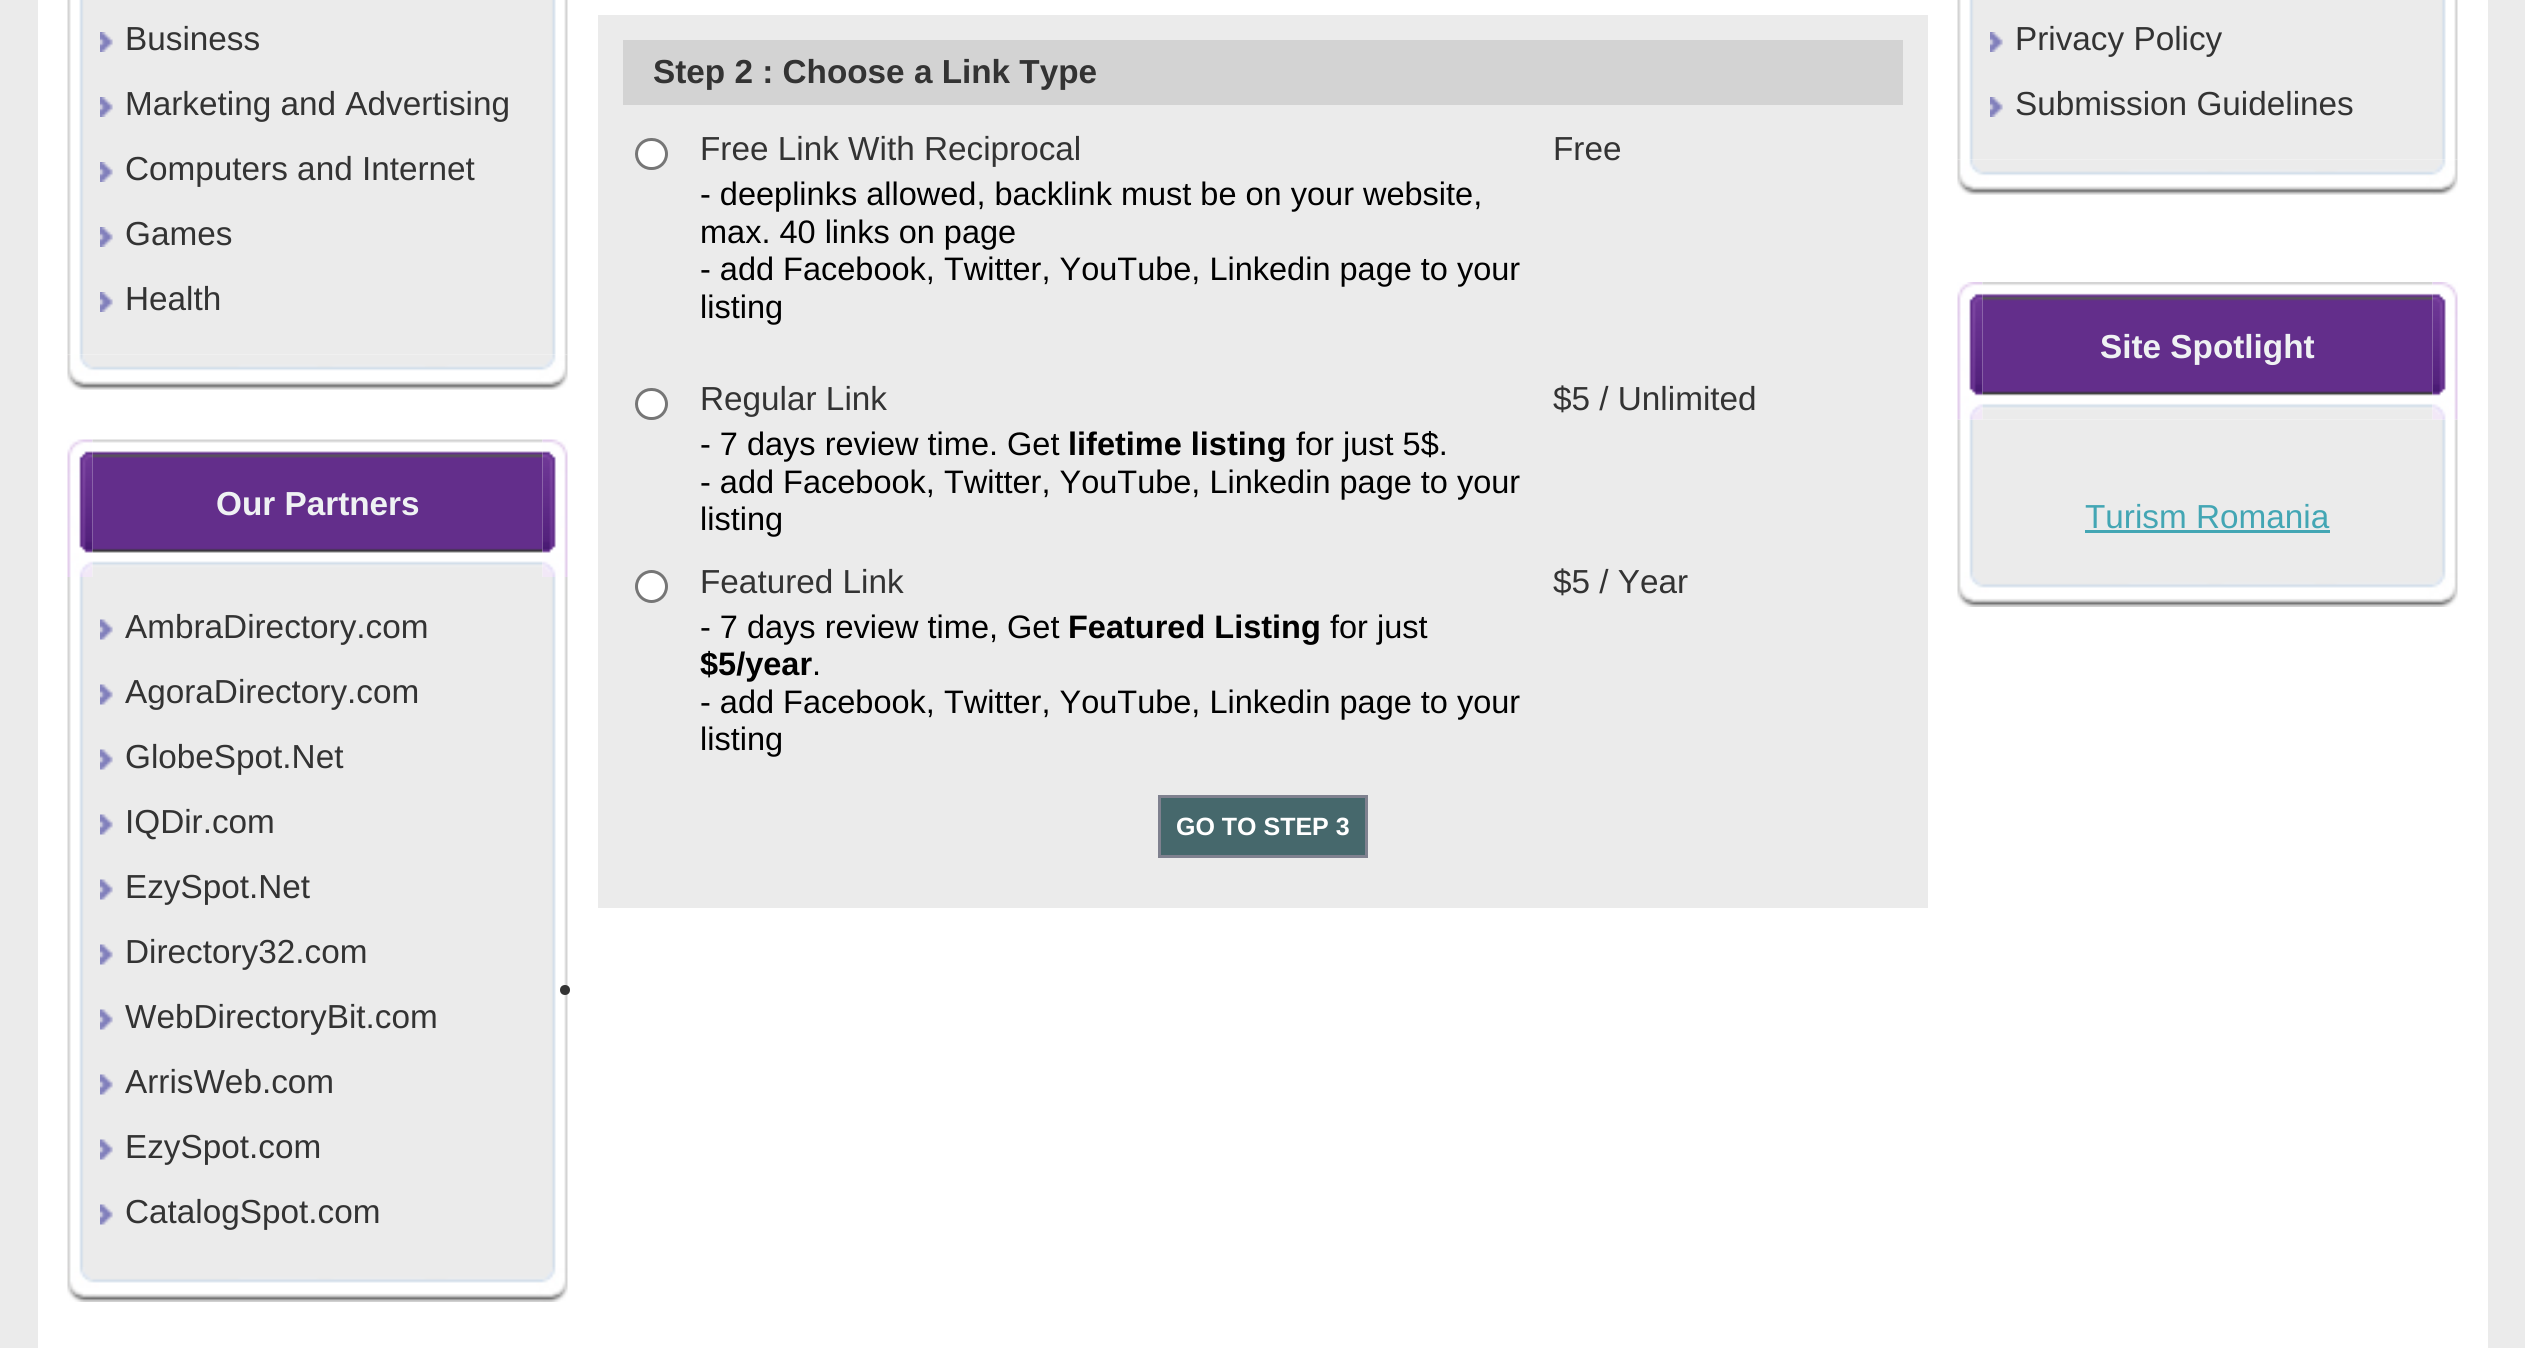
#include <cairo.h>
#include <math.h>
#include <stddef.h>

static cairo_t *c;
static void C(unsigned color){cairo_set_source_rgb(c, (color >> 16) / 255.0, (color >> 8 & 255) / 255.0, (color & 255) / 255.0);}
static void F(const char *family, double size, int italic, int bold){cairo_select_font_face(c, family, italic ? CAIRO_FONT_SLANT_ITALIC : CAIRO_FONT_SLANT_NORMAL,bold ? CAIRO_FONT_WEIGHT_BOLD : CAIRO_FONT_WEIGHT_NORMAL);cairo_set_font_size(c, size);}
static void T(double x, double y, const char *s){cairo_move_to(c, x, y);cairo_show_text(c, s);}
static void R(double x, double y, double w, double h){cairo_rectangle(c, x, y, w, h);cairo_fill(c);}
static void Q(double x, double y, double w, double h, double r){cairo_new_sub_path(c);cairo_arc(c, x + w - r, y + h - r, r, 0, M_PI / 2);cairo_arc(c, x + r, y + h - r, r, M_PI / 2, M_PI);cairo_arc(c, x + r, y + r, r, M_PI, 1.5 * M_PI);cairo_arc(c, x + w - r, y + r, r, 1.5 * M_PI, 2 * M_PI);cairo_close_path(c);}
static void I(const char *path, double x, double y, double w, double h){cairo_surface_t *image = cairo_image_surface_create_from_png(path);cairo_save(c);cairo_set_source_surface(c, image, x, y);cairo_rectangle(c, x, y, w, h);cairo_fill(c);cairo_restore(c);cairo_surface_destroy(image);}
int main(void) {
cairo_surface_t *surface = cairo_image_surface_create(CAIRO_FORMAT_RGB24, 2525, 1348);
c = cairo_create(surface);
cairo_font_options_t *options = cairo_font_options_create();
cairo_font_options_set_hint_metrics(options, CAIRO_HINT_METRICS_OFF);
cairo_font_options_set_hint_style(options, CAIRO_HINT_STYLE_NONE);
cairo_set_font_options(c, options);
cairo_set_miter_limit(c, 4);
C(0xebebeb);
cairo_paint(c);
C(0xffffff);
R(38,0,2450,1348);
I("1.png",67,0,501,355);
I("2.png",100,32,13,20);
F("Liberation Sans",33.3,0,0);
C(0x333333);
T(125,50,"Business");
I("3.png",100,97,13,20);
T(125,115,"Marketing and Advertising");
I("3.png",100,162,13,20);
T(125,180,"Computers and Internet");
I("3.png",100,227,13,20);
T(125,245,"Games");
I("3.png",100,292,13,20);
T(125,310,"Health");
I("4.png",67,354,501,36);
I("5.png",67,439,26,138);
I("6.png",92,439,451,138);
F("Liberation Sans",33.3,0,1);
C(0xeff2f3);
T(216,515,"Our Partners");
I("7.png",542,439,26,138);
I("8.png",67,577,501,690);
I("9.png",100,619,13,21);
F("Liberation Sans",33.3,0,0);
C(0x333333);
T(125,638,"AmbraDirectory.com");
I("9.png",100,684,13,21);
T(125,703,"AgoraDirectory.com");
I("9.png",100,749,13,21);
T(125,768,"GlobeSpot.Net");
I("10.png",100,814,13,21);
T(125,833,"IQDir.com");
I("9.png",100,879,13,21);
T(125,898,"EzySpot.Net");
I("9.png",100,944,13,21);
T(125,963,"Directory32.com");
I("9.png",100,1009,13,21);
T(125,1028,"WebDirectoryBit.com");
I("9.png",100,1074,13,21);
T(125,1093,"ArrisWeb.com");
I("9.png",100,1139,13,21);
T(125,1158,"EzySpot.com");
I("9.png",100,1204,13,21);
T(125,1223,"CatalogSpot.com");
I("11.png",67,1267,501,35);
C(0xebebeb);
R(598,15,1330,893);
C(0xd3d3d3);
R(623,40,1280,65);
F("Liberation Sans",33.3,0,1);
C(0x333333);
T(653,83,"Step 2 : Choose a Link Type");
C(0xffffff);
Q(636.5,139.5,30,29,14.5);
cairo_fill_preserve(c);
C(0x767676);
cairo_set_line_width(c,3);
cairo_stroke(c);
F("Liberation Sans",33.3,0,0);
C(0x333333);
T(700,160,"Free Link With Reciprocal");
F("Liberation Sans",32.5,0,0);
C(0x000000);
T(700,205,"- deeplinks allowed, backlink must be on your website,");
T(700,243,"max. 40 links on page");
T(700,280,"- add Facebook, Twitter, YouTube, Linkedin page to your");
T(700,318,"listing");
F("Liberation Sans",33.3,0,0);
C(0x333333);
T(1553,160,"Free");
C(0xffffff);
Q(636.5,389.5,30,29,14.5);
cairo_fill_preserve(c);
C(0x767676);
cairo_stroke(c);
C(0x333333);
T(700,410,"Regular Link");
F("Liberation Sans",32.5,0,0);
C(0x000000);
T(700,455,"- 7 days review time. Get");
F("Liberation Sans",32.5,0,1);
T(1068,455,"lifetime listing");
F("Liberation Sans",32.5,0,0);
T(1296,455,"for just 5$.");
T(700,493,"- add Facebook, Twitter, YouTube, Linkedin page to your");
T(700,530,"listing");
F("Liberation Sans",33.3,0,0);
C(0x333333);
T(1553,410,"$5 / Unlimited");
C(0xffffff);
cairo_new_path(c);
cairo_arc(c,651.5,586.5,15,0,2 * M_PI);
cairo_fill_preserve(c);
C(0x767676);
cairo_stroke(c);
C(0x333333);
T(700,593,"Featured Link");
F("Liberation Sans",32.5,0,0);
C(0x000000);
T(700,638,"- 7 days review time, Get");
F("Liberation Sans",32.5,0,1);
T(1068,638,"Featured Listing");
F("Liberation Sans",32.5,0,0);
T(1330,638,"for just");
F("Liberation Sans",32.5,0,1);
T(700,675,"$5/year");
F("Liberation Sans",32.5,0,0);
T(812,675,".");
T(700,713,"- add Facebook, Twitter, YouTube, Linkedin page to your");
T(700,750,"listing");
F("Liberation Sans",33.3,0,0);
C(0x333333);
T(1553,593,"$5 / Year");
C(0x46686c);
cairo_rectangle(c,1159.5,796.5,207,60);
cairo_fill_preserve(c);
C(0x7f818f);
cairo_stroke(c);
F("Liberation Sans",25,0,1);
C(0xffffff);
T(1176,835,"GO TO STEP 3");
C(0x333333);
cairo_new_path(c);
cairo_arc(c,565,990,5,0,2 * M_PI);
cairo_fill(c);
I("12.png",1957,0,501,160);
I("13.png",1990,32,13,20);
F("Liberation Sans",33.3,0,0);
T(2015,50,"Privacy Policy");
I("14.png",1990,97,13,20);
T(2015,115,"Submission Guidelines");
I("15.png",1957,159,501,36);
I("19.png",1957,419,501,153);
I("16.png",1957,282,26,138);
I("17.png",1982,282,451,138);
F("Liberation Sans",33.3,0,1);
C(0xeff2f3);
T(2100,358,"Site Spotlight");
I("18.png",2432,282,26,138);
F("Liberation Sans",33.3,0,0);
C(0x43a6b4);
T(2085,528,"Turism Romania");
R(2085,530,245,3);
I("20.png",1957,572,501,35);
cairo_surface_write_to_png(surface, "o.png");
cairo_font_options_destroy(options);
cairo_destroy(c);
cairo_surface_destroy(surface);
return 0;
}
